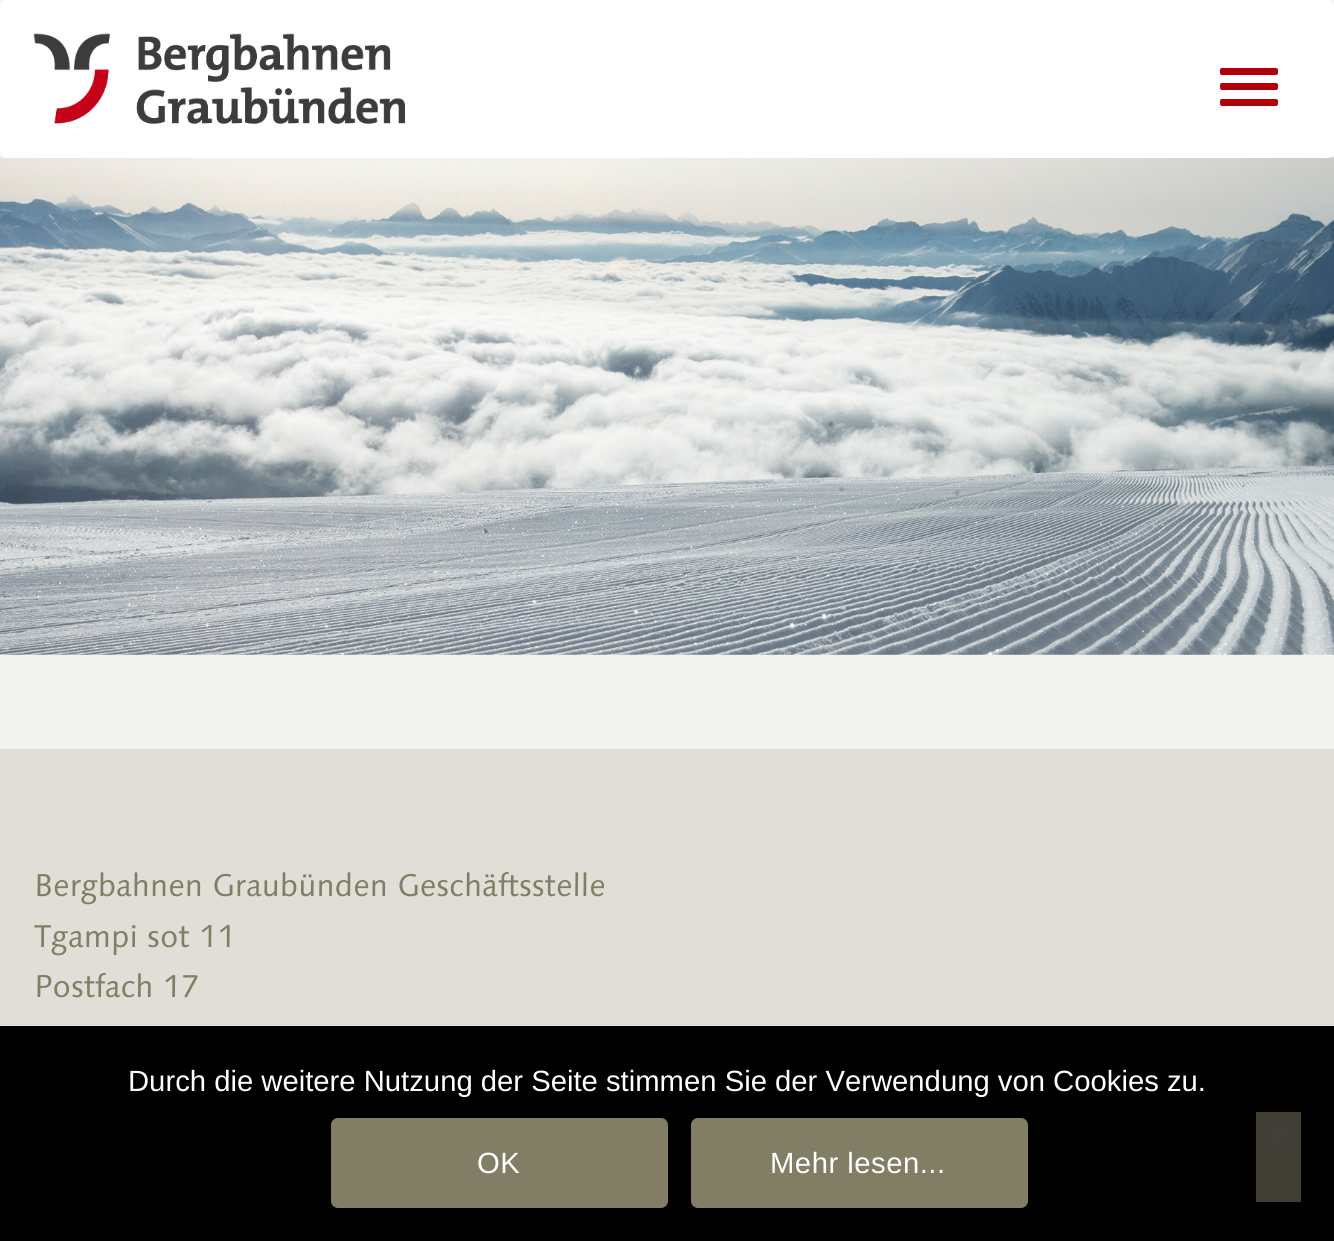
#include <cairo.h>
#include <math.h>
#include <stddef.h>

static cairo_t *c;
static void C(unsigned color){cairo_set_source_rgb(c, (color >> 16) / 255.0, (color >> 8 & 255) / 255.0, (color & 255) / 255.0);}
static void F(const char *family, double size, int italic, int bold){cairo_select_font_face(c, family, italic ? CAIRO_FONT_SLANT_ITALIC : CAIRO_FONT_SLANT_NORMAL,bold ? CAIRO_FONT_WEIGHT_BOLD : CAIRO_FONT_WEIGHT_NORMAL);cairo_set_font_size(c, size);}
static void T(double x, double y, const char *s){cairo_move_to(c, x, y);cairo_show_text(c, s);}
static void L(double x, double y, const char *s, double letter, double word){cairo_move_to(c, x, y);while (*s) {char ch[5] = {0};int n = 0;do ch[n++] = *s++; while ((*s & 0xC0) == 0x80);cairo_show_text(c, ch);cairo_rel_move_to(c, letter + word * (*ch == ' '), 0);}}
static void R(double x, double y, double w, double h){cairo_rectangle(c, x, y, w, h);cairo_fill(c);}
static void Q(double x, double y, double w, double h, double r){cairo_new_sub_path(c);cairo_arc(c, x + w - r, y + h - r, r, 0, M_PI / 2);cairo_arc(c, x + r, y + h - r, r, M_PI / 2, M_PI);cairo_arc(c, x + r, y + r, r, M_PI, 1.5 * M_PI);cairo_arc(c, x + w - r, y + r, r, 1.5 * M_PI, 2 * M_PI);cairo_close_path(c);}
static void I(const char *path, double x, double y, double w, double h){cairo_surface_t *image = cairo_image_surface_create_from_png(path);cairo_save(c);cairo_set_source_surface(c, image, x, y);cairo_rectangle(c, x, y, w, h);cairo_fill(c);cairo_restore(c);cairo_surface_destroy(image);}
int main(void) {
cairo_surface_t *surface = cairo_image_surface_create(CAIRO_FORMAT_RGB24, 1334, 1241);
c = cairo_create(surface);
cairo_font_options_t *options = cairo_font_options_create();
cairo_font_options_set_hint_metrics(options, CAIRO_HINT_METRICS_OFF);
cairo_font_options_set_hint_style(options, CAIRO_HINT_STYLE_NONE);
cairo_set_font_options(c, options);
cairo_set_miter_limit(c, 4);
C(0xf2f2ef);
cairo_paint(c);
I("2.png",0,157,1334,498);
C(0xffffff);
Q(0,0,1334,158,7);
cairo_fill(c);
I("1.png",33,33,372,91);
C(0xb2000b);
Q(1220,68,58,7,2);
cairo_fill(c);
Q(1220,83,58,7,2);
cairo_fill(c);
Q(1220,99,58,7,2);
cairo_fill(c);
C(0xdfdfd8);
R(0,749,1334,277);
F("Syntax",31.5,0,0);
C(0x817e65);
T(34,896,"Bergbahnen Graubünden Geschäftsstelle");
T(34,947,"Tgampi sot 11");
T(34,997,"Postfach 17");
C(0x000000);
R(0,1026,1334,215);
F("Liberation Sans",29.25,0,0);
C(0xffffff);
T(128,1091,"Durch die weitere Nutzung der Seite stimmen Sie der Verwendung von Cookies zu.");
C(0x817e65);
Q(331,1118,337,90,7);
cairo_fill(c);
C(0xffffff);
L(477,1173,"OK",.5,0);
C(0x817e65);
Q(691,1118,337,90,7);
cairo_fill(c);
C(0xffffff);
L(770,1173,"Mehr lesen...",.5,0);
C(0x413f33);
R(1256,1112,45,90);
C(0x404040);
cairo_new_path(c);
cairo_move_to(c,1290.5,1121.5);
cairo_line_to(c,1294,1125);
cairo_line_to(c,1270,1148.5);
cairo_line_to(c,1266.5,1145.5);
cairo_close_path(c);
cairo_fill(c);
cairo_new_path(c);
cairo_move_to(c,1266.5,1125);
cairo_line_to(c,1270,1121.5);
cairo_line_to(c,1294,1145.5);
cairo_line_to(c,1290.5,1148.5);
cairo_close_path(c);
cairo_fill(c);
cairo_surface_write_to_png(surface, "o.png");
cairo_font_options_destroy(options);
cairo_destroy(c);
cairo_surface_destroy(surface);
return 0;
}
